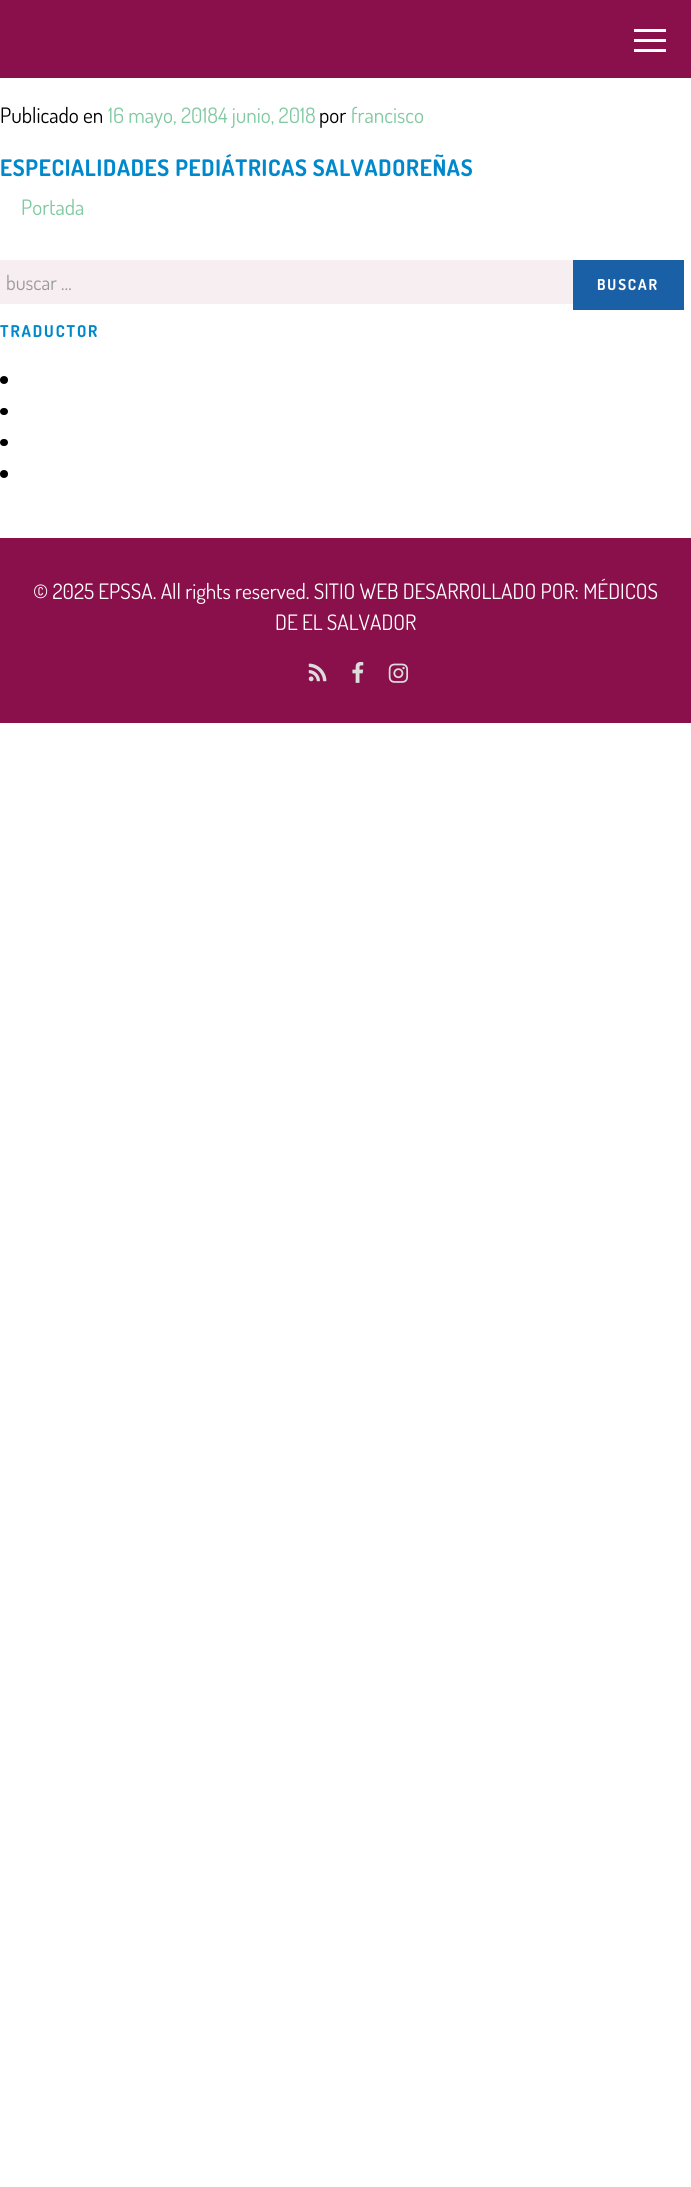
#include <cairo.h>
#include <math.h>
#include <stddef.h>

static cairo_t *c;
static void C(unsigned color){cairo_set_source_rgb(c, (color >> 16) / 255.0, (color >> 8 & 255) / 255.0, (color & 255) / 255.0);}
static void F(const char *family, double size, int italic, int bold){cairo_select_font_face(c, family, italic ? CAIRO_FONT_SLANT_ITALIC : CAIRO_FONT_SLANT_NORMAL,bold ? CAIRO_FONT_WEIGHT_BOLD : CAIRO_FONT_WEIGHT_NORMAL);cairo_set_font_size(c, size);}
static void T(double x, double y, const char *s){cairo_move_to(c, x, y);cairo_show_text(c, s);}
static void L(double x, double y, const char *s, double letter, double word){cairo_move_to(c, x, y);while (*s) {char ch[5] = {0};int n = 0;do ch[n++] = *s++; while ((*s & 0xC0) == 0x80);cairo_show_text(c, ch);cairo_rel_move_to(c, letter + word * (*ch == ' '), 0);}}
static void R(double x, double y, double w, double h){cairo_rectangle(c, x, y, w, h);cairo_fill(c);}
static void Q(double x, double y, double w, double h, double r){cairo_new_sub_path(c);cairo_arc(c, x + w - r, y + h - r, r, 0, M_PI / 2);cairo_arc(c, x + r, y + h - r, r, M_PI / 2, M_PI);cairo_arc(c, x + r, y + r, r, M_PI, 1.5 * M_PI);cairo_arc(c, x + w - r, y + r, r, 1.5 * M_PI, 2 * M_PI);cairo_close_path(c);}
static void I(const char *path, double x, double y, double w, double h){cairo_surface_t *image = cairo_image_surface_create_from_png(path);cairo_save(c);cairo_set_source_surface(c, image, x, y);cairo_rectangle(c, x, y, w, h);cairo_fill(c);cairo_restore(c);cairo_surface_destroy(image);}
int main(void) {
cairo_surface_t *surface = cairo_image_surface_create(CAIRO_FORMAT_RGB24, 691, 2187);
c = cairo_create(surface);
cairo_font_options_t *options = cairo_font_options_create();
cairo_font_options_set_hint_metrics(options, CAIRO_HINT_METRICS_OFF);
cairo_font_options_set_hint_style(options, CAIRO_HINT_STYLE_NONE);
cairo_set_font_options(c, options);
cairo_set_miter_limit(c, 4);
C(0xffffff);
cairo_paint(c);
C(0x89104b);
R(0,0,691,78);
C(0xffffff);
R(634,39,32,3);
R(634,29,32,3);
R(634,49,32,3);
F("Dosis",21.25,0,0);
C(0x000000);
T(0,123,"Publicado en");
C(0x80c9a1);
T(108,123,"16 mayo, 20184 junio, 2018");
C(0x000000);
T(319,123,"por");
C(0x80c9a1);
T(351,123,"francisco");
F("Dosis",22.75,0,1);
C(0x0088cc);
L(0,176,"ESPECIALIDADES PEDIÁTRICAS SALVADOREÑAS",.7,0);
F("Dosis",21.25,0,0);
C(0x80c9a1);
T(21,215,"Portada");
C(0xf7eef2);
R(0,260,573,44);
F("Dosis",20,0,0);
C(0x999999);
T(6,290,"buscar …");
C(0x1a60a6);
R(573,260,111,50);
F("Dosis",15,0,1);
C(0xffffff);
L(597,290,"BUSCAR",1.9,0);
F("Dosis",16.25,0,1);
C(0x0088cc);
L(0,337,"TRADUCTOR",1.9,0);
C(0x000000);
cairo_new_path(c);
cairo_arc(c,4,380,4,0,2 * M_PI);
cairo_fill(c);
Q(0,408,8,7,3.5);
cairo_fill(c);
Q(0,439,8,7,3.5);
cairo_fill(c);
cairo_arc(c,4,474,4,0,2 * M_PI);
cairo_fill(c);
C(0x89104b);
R(0,538,691,185);
F("Dosis",21.25,0,0);
C(0xffffff);
T(33,599,"© 2025 EPSSA. All rights reserved. SITIO WEB DESARROLLADO POR: MÉDICOS");
T(275,630,"DE EL SALVADOR");
I("1.png",308,663,19,19);
I("2.png",352,662,12,21);
I("3.png",388,663,21,20);
cairo_surface_write_to_png(surface, "o.png");
cairo_font_options_destroy(options);
cairo_destroy(c);
cairo_surface_destroy(surface);
return 0;
}
